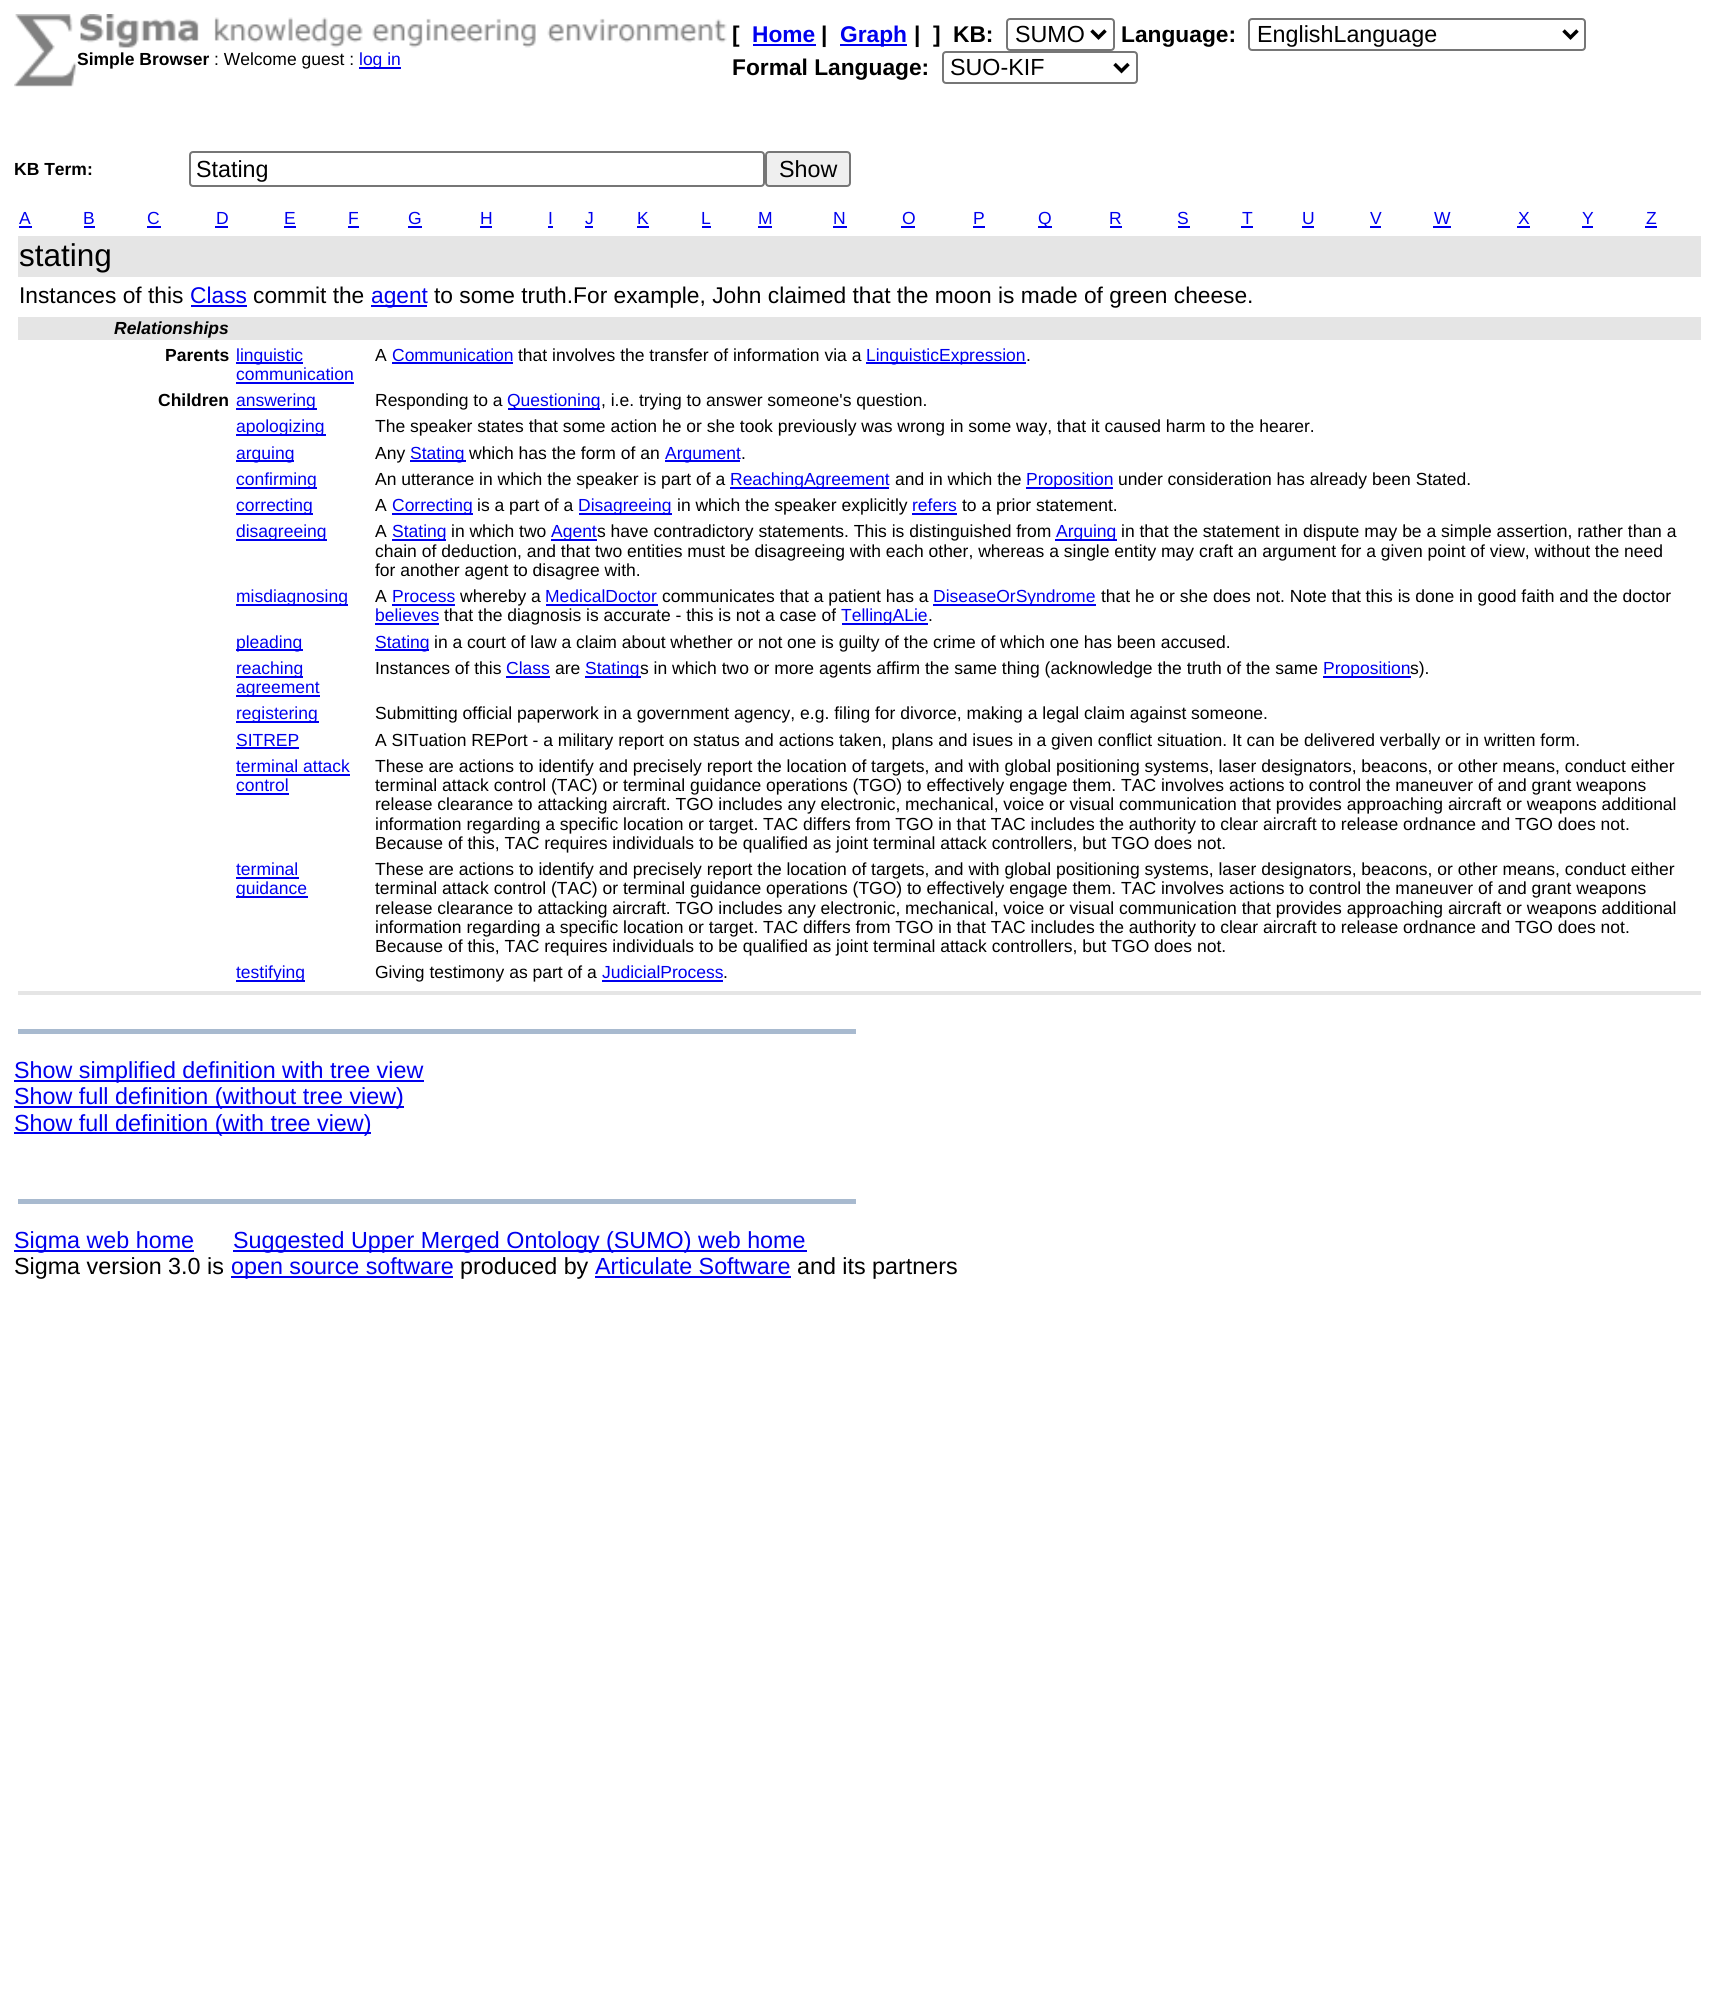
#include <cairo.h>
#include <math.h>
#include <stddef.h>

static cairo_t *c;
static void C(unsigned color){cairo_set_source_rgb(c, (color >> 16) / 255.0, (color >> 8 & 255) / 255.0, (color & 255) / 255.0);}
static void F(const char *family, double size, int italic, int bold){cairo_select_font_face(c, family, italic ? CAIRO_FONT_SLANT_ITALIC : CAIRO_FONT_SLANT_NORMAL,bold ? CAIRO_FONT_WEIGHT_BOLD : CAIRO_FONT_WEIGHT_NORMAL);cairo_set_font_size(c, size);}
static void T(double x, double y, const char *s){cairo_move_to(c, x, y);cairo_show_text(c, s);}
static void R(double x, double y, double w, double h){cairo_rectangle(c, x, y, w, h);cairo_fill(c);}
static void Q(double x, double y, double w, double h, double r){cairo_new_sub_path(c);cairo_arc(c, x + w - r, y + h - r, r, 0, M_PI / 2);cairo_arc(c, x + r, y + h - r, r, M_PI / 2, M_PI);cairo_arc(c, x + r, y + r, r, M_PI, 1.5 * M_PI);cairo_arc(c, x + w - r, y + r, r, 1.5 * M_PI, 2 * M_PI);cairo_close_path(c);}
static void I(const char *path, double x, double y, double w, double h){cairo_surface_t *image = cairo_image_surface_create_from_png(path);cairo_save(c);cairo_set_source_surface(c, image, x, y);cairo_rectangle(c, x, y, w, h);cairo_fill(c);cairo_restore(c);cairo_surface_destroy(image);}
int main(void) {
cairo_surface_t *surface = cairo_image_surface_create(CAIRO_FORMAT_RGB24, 1718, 1996);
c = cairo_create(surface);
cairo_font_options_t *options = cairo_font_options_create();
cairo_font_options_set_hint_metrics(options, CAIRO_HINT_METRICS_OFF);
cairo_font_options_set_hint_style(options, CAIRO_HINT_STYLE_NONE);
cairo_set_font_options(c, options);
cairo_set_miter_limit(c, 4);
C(0xffffff);
cairo_paint(c);
I("1.png",14,14,63,73);
I("2.png",80,14,647,34);
F("Liberation Sans",17.5,0,1);
C(0x000000);
T(77,65,"Simple Browser");
F("Liberation Sans",17.5,0,0);
T(214,65,": Welcome guest :");
C(0x0000ee);
R(359,67,42,2);
T(359,65,"log in");
F("Liberation Sans",22.75,0,1);
C(0x000000);
T(732,42,"[");
C(0x0000ee);
T(752,42,"Home");
R(753,44,63,2);
C(0x000000);
T(821,42,"|");
C(0x0000ee);
R(840,44,67,2);
T(840,42,"Graph");
C(0x000000);
T(914,42,"|");
T(933,42,"]");
T(953,42,"KB:");
Q(1007,19,107,31,3);
C(0x767676);
cairo_stroke(c);
cairo_new_path(c);
cairo_move_to(c,1091.5,30.5);
cairo_line_to(c,1098.5,37.5);
cairo_line_to(c,1105.5,30.5);
C(0x000000);
cairo_set_line_width(c,3.5);
cairo_stroke(c);
F("Liberation Sans",23.3,0,0);
T(1015,42,"SUMO");
F("Liberation Sans",22.75,0,1);
T(1121,42,"Language:");
Q(1249,19,336,31,3);
C(0x767676);
cairo_set_line_width(c,2);
cairo_stroke(c);
cairo_new_path(c);
cairo_move_to(c,1563.5,30.5);
cairo_line_to(c,1570.5,37.5);
cairo_line_to(c,1577.5,30.5);
C(0x000000);
cairo_set_line_width(c,3.5);
cairo_stroke(c);
F("Liberation Sans",23.3,0,0);
T(1257,42,"EnglishLanguage");
F("Liberation Sans",22.75,0,1);
T(732,75,"Formal Language:");
Q(943,52,194,31,3);
C(0x767676);
cairo_set_line_width(c,2);
cairo_stroke(c);
cairo_new_path(c);
cairo_move_to(c,1114.5,64);
cairo_line_to(c,1121.5,71);
cairo_line_to(c,1128.5,64);
C(0x000000);
cairo_set_line_width(c,3.5);
cairo_stroke(c);
F("Liberation Sans",23.3,0,0);
T(950,75,"SUO-KIF");
F("Liberation Sans",17.5,0,1);
T(14,175,"KB Term:");
Q(190,152,574,34,3);
C(0x767676);
cairo_set_line_width(c,2);
cairo_stroke(c);
F("Liberation Sans",23.3,0,0);
C(0x000000);
T(196,177,"Stating");
C(0xefefef);
Q(766,152,84,34,3);
cairo_fill_preserve(c);
C(0x767676);
cairo_stroke(c);
C(0x000000);
T(779,177,"Show");
F("Liberation Sans",17.5,0,0);
C(0x0000ee);
T(19,224,"A");
R(19,226,13,2);
T(83,224,"B");
R(84,226,11,2);
T(147,224,"C");
R(147,226,14,2);
T(216,224,"D");
R(215,226,13,2);
T(284,224,"E");
R(284,226,12,2);
T(348,224,"F");
R(348,226,11,2);
T(408,224,"G");
R(408,226,14,2);
T(480,224,"H");
R(480,226,12,2);
T(548,224,"I");
R(548,226,5,2);
T(585,224,"J");
R(585,226,8,2);
T(637,224,"K");
R(637,226,12,2);
T(701,224,"L");
R(702,226,9,2);
T(758,224,"M");
R(758,226,14,2);
T(833,224,"N");
R(833,226,14,2);
T(902,224,"O");
R(901,226,14,2);
T(973,224,"P");
R(973,226,12,2);
R(1038,226,14,2);
T(1038,224,"Q");
T(1109,224,"R");
R(1110,226,12,2);
T(1177,224,"S");
R(1178,226,12,2);
T(1242,224,"T");
R(1241,226,12,2);
T(1302,224,"U");
R(1302,226,12,2);
T(1370,224,"V");
R(1370,226,11,2);
T(1434,224,"W");
R(1433,226,18,2);
T(1518,224,"X");
R(1517,226,13,2);
T(1582,224,"Y");
R(1582,226,11,2);
T(1646,224,"Z");
R(1645,226,12,2);
C(0xe5e5e5);
R(18,236,1683,41);
F("Liberation Sans",31.5,0,0);
C(0x000000);
T(19,266,"stating");
F("Liberation Sans",22.75,0,0);
T(19,303,"Instances of this");
C(0x0000ee);
T(190,303,"Class");
R(191,305,56,2);
C(0x000000);
T(253,303,"commit the");
C(0x0000ee);
R(371,305,56,2);
T(371,303,"agent");
C(0x000000);
T(434,303,"to some truth.For example, John claimed that the moon is made of green cheese.");
C(0xe5e5e5);
R(18,317,1683,23);
F("Liberation Sans",17.5,1,1);
C(0x000000);
T(114,334,"Relationships");
F("Liberation Sans",17.5,0,1);
T(165,361,"Parents");
C(0x0000ee);
R(236,362,67,2);
F("Liberation Sans",17.5,0,0);
T(236,361,"linguistic");
T(236,380,"communication");
R(236,382,118,2);
C(0x000000);
T(375,361,"A");
C(0x0000ee);
T(392,361,"Communication");
R(392,362,121,2);
C(0x000000);
T(518,361,"that involves the transfer of information via a");
C(0x0000ee);
R(866,362,160,2);
T(866,361,"LinguisticExpression");
C(0x000000);
T(1026,361,".");
F("Liberation Sans",17.5,0,1);
T(158,406,"Children");
C(0x0000ee);
R(236,408,81,2);
F("Liberation Sans",17.5,0,0);
T(236,406,"answering");
C(0x000000);
T(375,406,"Responding to a");
C(0x0000ee);
R(508,408,92,2);
T(507,406,"Questioning");
C(0x000000);
T(601,406,", i.e. trying to answer someone's question.");
C(0x0000ee);
R(236,434,90,2);
T(236,432,"apologizing");
C(0x000000);
T(375,432,"The speaker states that some action he or she took previously was wrong in some way, that it caused harm to the hearer.");
C(0x0000ee);
R(236,460,58,2);
T(236,459,"arguing");
C(0x000000);
T(375,459,"Any");
C(0x0000ee);
R(410,460,56,2);
T(410,459,"Stating");
C(0x000000);
T(469,459,"which has the form of an");
C(0x0000ee);
R(665,460,75,2);
T(665,459,"Argument");
C(0x000000);
T(741,459,".");
C(0x0000ee);
R(236,487,81,2);
T(236,485,"confirming");
C(0x000000);
T(375,485,"An utterance in which the speaker is part of a");
C(0x0000ee);
R(730,487,159,2);
T(730,485,"ReachingAgreement");
C(0x000000);
T(895,485,"and in which the");
C(0x0000ee);
R(1026,487,87,2);
T(1026,485,"Proposition");
C(0x000000);
T(1118,485,"under consideration has already been Stated.");
C(0x0000ee);
R(236,513,77,2);
T(236,511,"correcting");
C(0x000000);
T(375,511,"A");
C(0x0000ee);
R(392,513,81,2);
T(392,511,"Correcting");
C(0x000000);
T(477,511,"is a part of a");
C(0x0000ee);
R(579,513,93,2);
T(578,511,"Disagreeing");
C(0x000000);
T(677,511,"in which the speaker explicitly");
C(0x0000ee);
T(912,511,"refers");
R(912,513,45,2);
C(0x000000);
T(962,511,"to a prior statement.");
C(0x0000ee);
R(236,539,91,2);
T(236,537,"disagreeing");
C(0x000000);
T(375,537,"A");
C(0x0000ee);
R(392,539,54,2);
T(392,537,"Stating");
C(0x000000);
T(451,537,"in which two");
C(0x0000ee);
R(551,539,46,2);
T(551,537,"Agent");
C(0x000000);
T(597,537,"s have contradictory statements. This is distinguished from");
C(0x0000ee);
R(1055,539,62,2);
T(1056,537,"Arguing");
C(0x000000);
T(1121,537,"in that the statement in dispute may be a simple assertion, rather than a");
T(375,557,"chain of deduction, and that two entities must be disagreeing with each other, whereas a single entity may craft an argument for a given point of view, without the need");
T(375,576,"for another agent to disagree with.");
C(0x0000ee);
R(236,604,112,2);
T(236,602,"misdiagnosing");
C(0x000000);
T(375,602,"A");
C(0x0000ee);
T(392,602,"Process");
R(392,604,63,2);
C(0x000000);
T(460,602,"whereby a");
C(0x0000ee);
T(545,602,"MedicalDoctor");
R(546,604,112,2);
C(0x000000);
T(662,602,"communicates that a patient has a");
C(0x0000ee);
R(933,604,163,2);
T(933,602,"DiseaseOrSyndrome");
C(0x000000);
T(1101,602,"that he or she does not. Note that this is done in good faith and the doctor");
C(0x0000ee);
T(375,621,"believes");
R(375,623,64,2);
C(0x000000);
T(444,621,"that the diagnosis is accurate - this is not a case of");
C(0x0000ee);
R(842,623,86,2);
T(841,621,"TellingALie");
C(0x000000);
T(928,621,".");
C(0x0000ee);
R(236,649,67,2);
T(236,648,"pleading");
R(375,649,54,2);
T(375,648,"Stating");
C(0x000000);
T(434,648,"in a court of law a claim about whether or not one is guilty of the crime of which one has been accused.");
C(0x0000ee);
R(236,676,67,2);
T(236,674,"reaching");
R(236,695,84,2);
T(236,693,"agreement");
C(0x000000);
T(375,674,"Instances of this");
C(0x0000ee);
T(506,674,"Class");
R(506,676,44,2);
C(0x000000);
T(555,674,"are");
C(0x0000ee);
R(585,676,56,2);
T(585,674,"Stating");
C(0x000000);
T(640,674,"s in which two or more agents affirm the same thing (acknowledge the truth of the same");
C(0x0000ee);
R(1323,676,88,2);
T(1323,674,"Proposition");
C(0x000000);
T(1410,674,"s).");
C(0x0000ee);
R(236,721,83,2);
T(236,719,"registering");
C(0x000000);
T(375,719,"Submitting official paperwork in a government agency, e.g. filing for divorce, making a legal claim against someone.");
C(0x0000ee);
T(236,746,"SITREP");
R(236,747,63,2);
C(0x000000);
T(375,746,"A SITuation REPort - a military report on status and actions taken, plans and isues in a given conflict situation. It can be delivered verbally or in written form.");
C(0x0000ee);
T(236,772,"terminal attack");
R(236,774,114,2);
T(236,791,"control");
R(236,793,53,2);
C(0x000000);
T(375,772,"These are actions to identify and precisely report the location of targets, and with global positioning systems, laser designators, beacons, or other means, conduct either");
T(375,791,"terminal attack control (TAC) or terminal guidance operations (TGO) to effectively engage them. TAC involves actions to control the maneuver of and grant weapons");
T(375,810,"release clearance to attacking aircraft. TGO includes any electronic, mechanical, voice or visual communication that provides approaching aircraft or weapons additional");
T(375,830,"information regarding a specific location or target. TAC differs from TGO in that TAC includes the authority to clear aircraft to release ordnance and TGO does not.");
T(375,849,"Because of this, TAC requires individuals to be qualified as joint terminal attack controllers, but TGO does not.");
C(0x0000ee);
T(236,875,"terminal");
R(236,877,63,2);
R(236,896,72,2);
T(236,894,"guidance");
C(0x000000);
T(375,875,"These are actions to identify and precisely report the location of targets, and with global positioning systems, laser designators, beacons, or other means, conduct either");
T(375,894,"terminal attack control (TAC) or terminal guidance operations (TGO) to effectively engage them. TAC involves actions to control the maneuver of and grant weapons");
T(375,914,"release clearance to attacking aircraft. TGO includes any electronic, mechanical, voice or visual communication that provides approaching aircraft or weapons additional");
T(375,933,"information regarding a specific location or target. TAC differs from TGO in that TAC includes the authority to clear aircraft to release ordnance and TGO does not.");
T(375,952,"Because of this, TAC requires individuals to be qualified as joint terminal attack controllers, but TGO does not.");
C(0x0000ee);
R(236,980,69,2);
T(236,978,"testifying");
C(0x000000);
T(375,978,"Giving testimony as part of a");
C(0x0000ee);
T(602,978,"JudicialProcess");
R(602,980,121,2);
C(0x000000);
T(723,978,".");
C(0xe5e5e5);
R(18,991,1683,4);
C(0xa8bacf);
R(18,1029,838,5);
C(0x0000ee);
R(14,1080,410,2);
F("Liberation Sans",23.3,0,0);
T(14,1078,"Show simplified definition with tree view");
R(14,1106,390,2);
T(14,1104,"Show full definition (without tree view)");
R(14,1132,357,2);
T(14,1131,"Show full definition (with tree view)");
C(0xa8bacf);
R(18,1199,838,5);
C(0x0000ee);
R(14,1250,180,2);
T(14,1248,"Sigma web home");
R(233,1250,574,2);
T(233,1248,"Suggested Upper Merged Ontology (SUMO) web home");
C(0x000000);
T(14,1274,"Sigma version 3.0 is");
C(0x0000ee);
R(231,1276,222,2);
T(231,1274,"open source software");
C(0x000000);
T(460,1274,"produced by");
C(0x0000ee);
T(595,1274,"Articulate Software");
R(595,1276,196,2);
C(0x000000);
T(797,1274,"and its partners");
cairo_surface_write_to_png(surface, "o.png");
cairo_font_options_destroy(options);
cairo_destroy(c);
cairo_surface_destroy(surface);
return 0;
}
